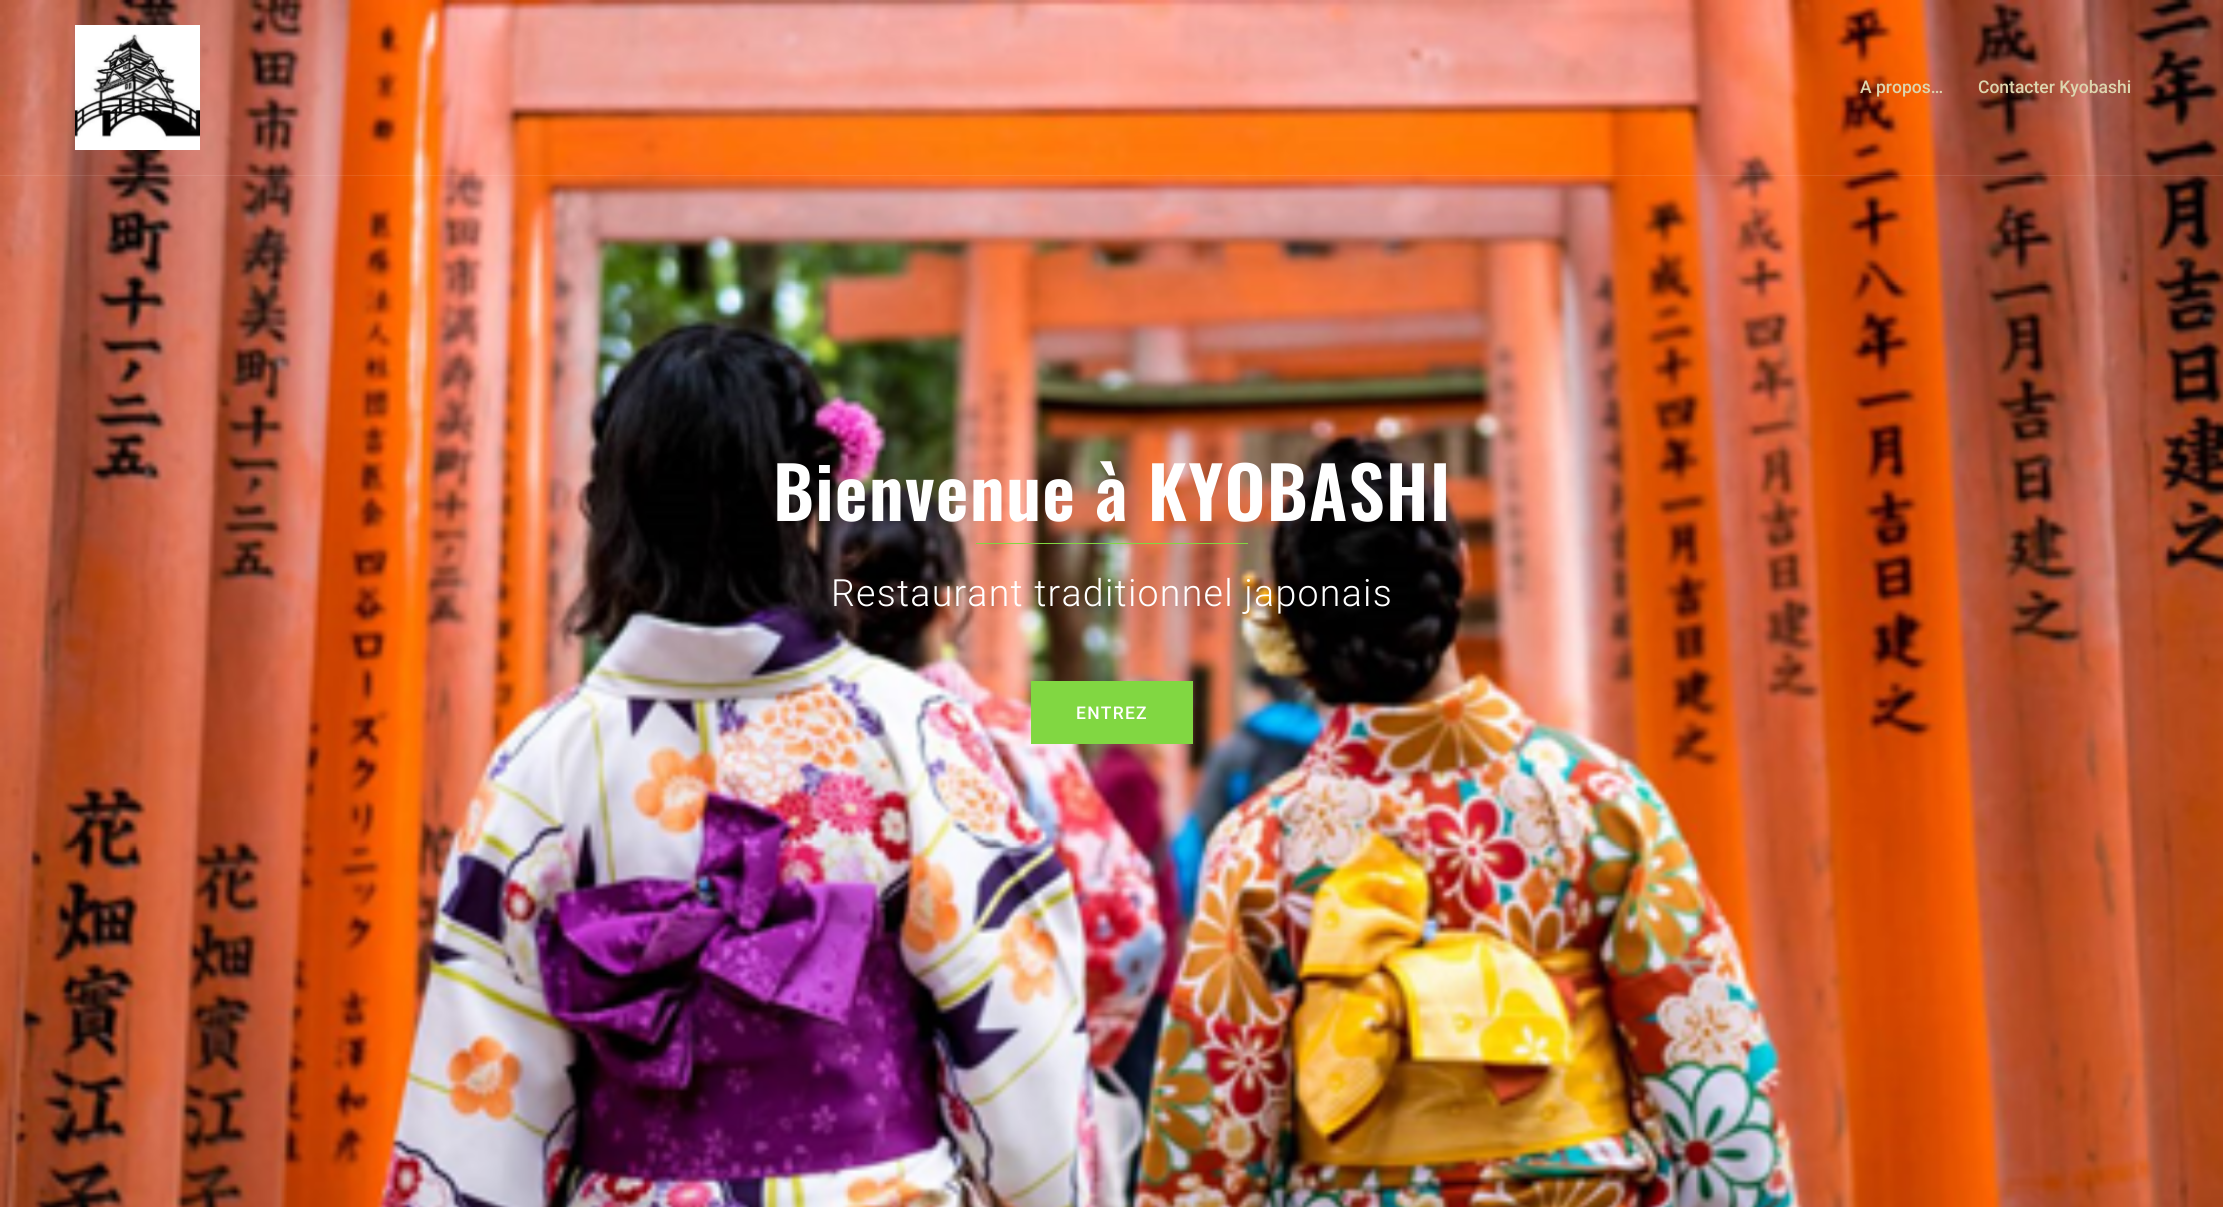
#include <cairo.h>
#include <math.h>
#include <stddef.h>

static cairo_t *c;
static void C(unsigned color){cairo_set_source_rgb(c, (color >> 16) / 255.0, (color >> 8 & 255) / 255.0, (color & 255) / 255.0);}
static void F(const char *family, double size, int italic, int bold){cairo_select_font_face(c, family, italic ? CAIRO_FONT_SLANT_ITALIC : CAIRO_FONT_SLANT_NORMAL,bold ? CAIRO_FONT_WEIGHT_BOLD : CAIRO_FONT_WEIGHT_NORMAL);cairo_set_font_size(c, size);}
static void T(double x, double y, const char *s){cairo_move_to(c, x, y);cairo_show_text(c, s);}
static void L(double x, double y, const char *s, double letter, double word){cairo_move_to(c, x, y);while (*s) {char ch[5] = {0};int n = 0;do ch[n++] = *s++; while ((*s & 0xC0) == 0x80);cairo_show_text(c, ch);cairo_rel_move_to(c, letter + word * (*ch == ' '), 0);}}
static void R(double x, double y, double w, double h){cairo_rectangle(c, x, y, w, h);cairo_fill(c);}
static void I(const char *path, double x, double y, double w, double h){cairo_surface_t *image = cairo_image_surface_create_from_png(path);cairo_save(c);cairo_set_source_surface(c, image, x, y);cairo_rectangle(c, x, y, w, h);cairo_fill(c);cairo_restore(c);cairo_surface_destroy(image);}
int main(void) {
cairo_surface_t *surface = cairo_image_surface_create(CAIRO_FORMAT_RGB24, 2223, 1207);
c = cairo_create(surface);
cairo_font_options_t *options = cairo_font_options_create();
cairo_font_options_set_hint_metrics(options, CAIRO_HINT_METRICS_OFF);
cairo_font_options_set_hint_style(options, CAIRO_HINT_STYLE_NONE);
cairo_set_font_options(c, options);
cairo_set_miter_limit(c, 4);
C(0xffffff);
cairo_paint(c);
I("2.png",0,0,2223,1207);
cairo_set_source_rgba(c,1,1,1,0.1);
R(0,175,2223,1);
I("1.png",75,25,125,125);
F("Roboto Medium",17.5,0,0);
C(0xddd6af);
T(1860,93,"A propos…");
T(1978,93,"Contacter Kyobashi");
F("Oswald SemiBold",71.25,0,0);
C(0xffffff);
L(773,521,"Bienvenue à KYOBASHI",1.25,0);
C(0x81d742);
R(976,543,272,1);
F("Roboto Light",37.5,0,0);
C(0xffffff);
L(831,606,"Restaurant traditionnel japonais",1.25,0);
C(0x81d742);
R(1031,681,162,63);
F("Roboto Medium",17.5,0,0);
C(0xffffff);
L(1076,719,"ENTREZ",1.25,0);
cairo_surface_write_to_png(surface, "o.png");
cairo_font_options_destroy(options);
cairo_destroy(c);
cairo_surface_destroy(surface);
return 0;
}
